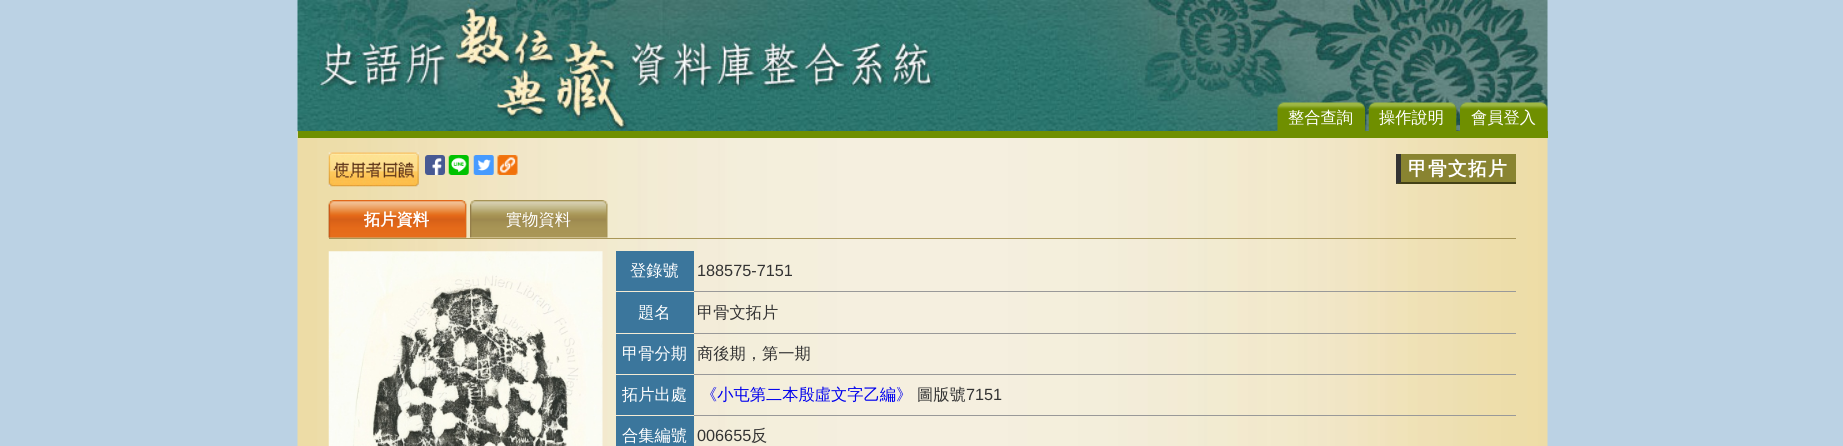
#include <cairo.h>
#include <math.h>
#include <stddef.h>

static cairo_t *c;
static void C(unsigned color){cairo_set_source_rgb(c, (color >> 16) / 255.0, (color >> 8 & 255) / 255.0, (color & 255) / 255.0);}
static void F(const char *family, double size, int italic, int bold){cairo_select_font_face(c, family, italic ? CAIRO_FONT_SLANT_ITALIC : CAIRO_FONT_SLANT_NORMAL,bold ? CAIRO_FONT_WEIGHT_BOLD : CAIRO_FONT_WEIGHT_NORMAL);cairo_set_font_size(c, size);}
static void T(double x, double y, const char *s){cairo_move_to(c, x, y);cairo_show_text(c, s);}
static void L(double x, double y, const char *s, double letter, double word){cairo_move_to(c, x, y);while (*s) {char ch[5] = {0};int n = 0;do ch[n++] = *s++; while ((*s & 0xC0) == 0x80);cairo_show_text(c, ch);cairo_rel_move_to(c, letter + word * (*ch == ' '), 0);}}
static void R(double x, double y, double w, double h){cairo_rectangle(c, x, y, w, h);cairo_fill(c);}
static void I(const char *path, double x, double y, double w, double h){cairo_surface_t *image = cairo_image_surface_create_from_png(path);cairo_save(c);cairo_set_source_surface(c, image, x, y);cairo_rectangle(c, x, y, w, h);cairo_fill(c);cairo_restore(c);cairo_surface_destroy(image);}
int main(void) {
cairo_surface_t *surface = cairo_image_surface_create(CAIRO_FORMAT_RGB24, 1843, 446);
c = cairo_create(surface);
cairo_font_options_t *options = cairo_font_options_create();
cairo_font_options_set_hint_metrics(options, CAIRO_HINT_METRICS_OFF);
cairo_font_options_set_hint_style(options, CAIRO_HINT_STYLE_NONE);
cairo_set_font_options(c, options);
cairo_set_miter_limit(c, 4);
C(0xbbd2e4);
cairo_paint(c);
I("1.png",297,0,1251,132);
I("2.png",1277,102,88,29);
F("WenQuanYi Zen Hei Medium",16.25,0,0);
C(0xffffff);
T(1288,123,"整合查詢");
I("3.png",1368,102,89,29);
T(1379,123,"操作說明");
I("4.png",1460,102,88,29);
T(1471,123,"會員登入");
I("5.png",297,131,1251,315);
C(0x6f8f00);
R(298,131,1250,7);
I("6.png",328,152,91,35);
I("7.png",425,155,20,20);
I("8.png",448,155,21,20);
I("9.png",473,155,21,20);
I("10.png",497,155,21,20);
C(0x898431);
R(1396,154,120,30);
F("WenQuanYi Zen Hei",18.75,0,1);
C(0xffffff);
L(1408,175,"甲骨文拓片",1.25,0);
C(0x434116);
cairo_new_path(c);
cairo_move_to(c,1516,184);
cairo_line_to(c,1396,184);
cairo_line_to(c,1401,182);
cairo_line_to(c,1516,182);
cairo_close_path(c);
cairo_fill(c);
C(0x333333);
cairo_new_path(c);
cairo_move_to(c,1396,184);
cairo_line_to(c,1396,154);
cairo_line_to(c,1401,154);
cairo_line_to(c,1401,182.5);
cairo_close_path(c);
cairo_fill(c);
C(0xa99657);
R(329,238,1187,1);
I("11.png",328,200,139,38);
I("12.png",328,200,139,38);
F("WenQuanYi Zen Hei",16.25,0,1);
C(0xffffff);
T(364,225,"拓片資料");
I("13.png",470,200,138,38);
F("WenQuanYi Zen Hei Medium",16.25,0,0);
T(506,225,"實物資料");
I("14.png",328,251,275,195);
C(0x3b769c);
R(616,251,78,82);
C(0x999999);
R(693,291,823,1);
C(0xf3ebd4);
R(615,291,79,1);
C(0xffffff);
T(630,276,"登錄號");
F("Liberation Sans",16.25,0,0);
C(0x333333);
T(697,276,"188575-7151");
C(0x999999);
R(693,333,823,1);
C(0xf3ebd4);
R(615,333,79,1);
F("WenQuanYi Zen Hei Medium",16.25,0,0);
C(0xffffff);
T(638,318,"題名");
C(0x333333);
T(697,318,"甲骨文拓片");
C(0x3b769c);
R(616,334,78,40);
C(0x999999);
R(693,374,823,1);
C(0xf3ebd4);
R(615,374,79,1);
C(0xffffff);
T(622,359,"甲骨分期");
C(0x333333);
T(697,359,"商後期，第一期");
C(0x3b769c);
R(616,375,78,40);
C(0x999999);
R(693,415,823,1);
C(0xf3ebd4);
R(615,415,79,1);
C(0xffffff);
T(622,400,"拓片出處");
C(0x0000ee);
T(701,400,"《小屯第二本殷虛文字乙編》");
C(0x333333);
T(917,400,"圖版號");
F("Liberation Sans",16.25,0,0);
T(966,400,"7151");
C(0x3b769c);
R(616,416,78,30);
F("WenQuanYi Zen Hei Medium",16.25,0,0);
C(0xffffff);
T(622,441,"合集編號");
F("Liberation Sans",16.25,0,0);
C(0x333333);
T(697,441,"006655");
F("WenQuanYi Zen Hei Medium",16.25,0,0);
T(751,441,"反");
cairo_surface_write_to_png(surface, "o.png");
cairo_font_options_destroy(options);
cairo_destroy(c);
cairo_surface_destroy(surface);
return 0;
}
